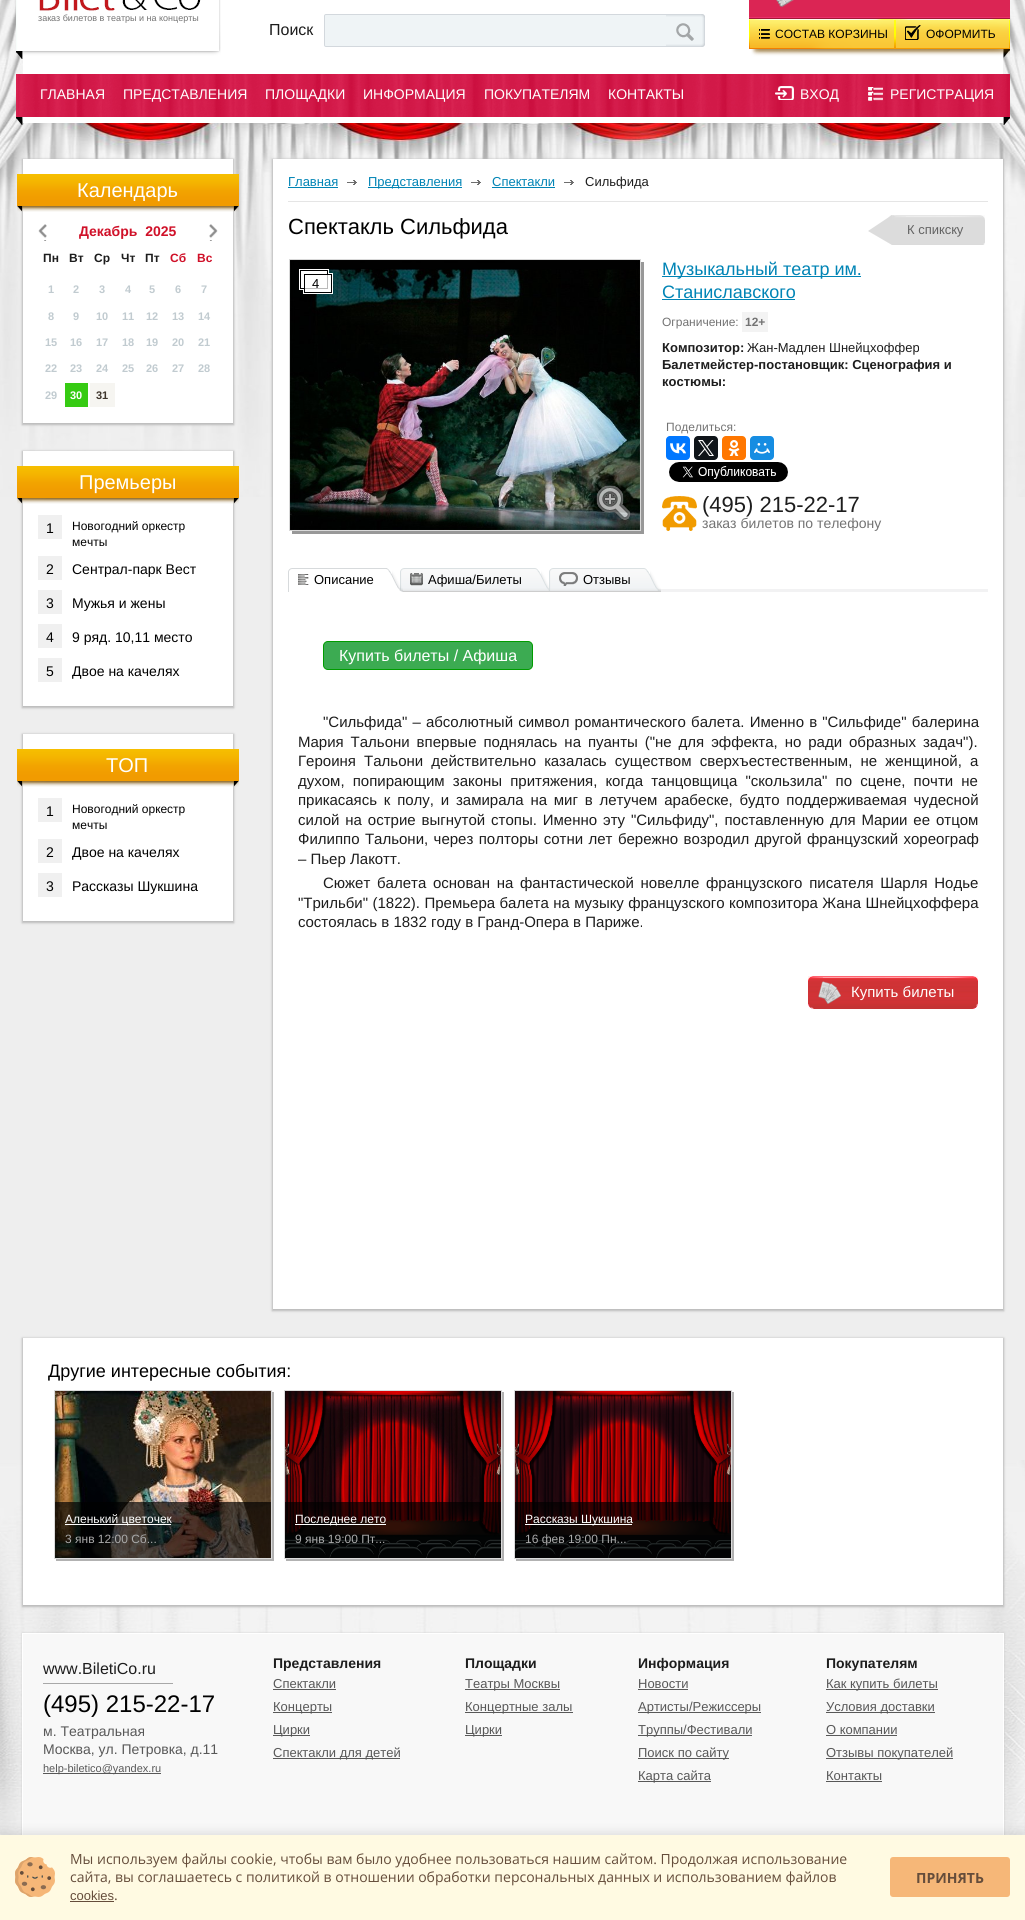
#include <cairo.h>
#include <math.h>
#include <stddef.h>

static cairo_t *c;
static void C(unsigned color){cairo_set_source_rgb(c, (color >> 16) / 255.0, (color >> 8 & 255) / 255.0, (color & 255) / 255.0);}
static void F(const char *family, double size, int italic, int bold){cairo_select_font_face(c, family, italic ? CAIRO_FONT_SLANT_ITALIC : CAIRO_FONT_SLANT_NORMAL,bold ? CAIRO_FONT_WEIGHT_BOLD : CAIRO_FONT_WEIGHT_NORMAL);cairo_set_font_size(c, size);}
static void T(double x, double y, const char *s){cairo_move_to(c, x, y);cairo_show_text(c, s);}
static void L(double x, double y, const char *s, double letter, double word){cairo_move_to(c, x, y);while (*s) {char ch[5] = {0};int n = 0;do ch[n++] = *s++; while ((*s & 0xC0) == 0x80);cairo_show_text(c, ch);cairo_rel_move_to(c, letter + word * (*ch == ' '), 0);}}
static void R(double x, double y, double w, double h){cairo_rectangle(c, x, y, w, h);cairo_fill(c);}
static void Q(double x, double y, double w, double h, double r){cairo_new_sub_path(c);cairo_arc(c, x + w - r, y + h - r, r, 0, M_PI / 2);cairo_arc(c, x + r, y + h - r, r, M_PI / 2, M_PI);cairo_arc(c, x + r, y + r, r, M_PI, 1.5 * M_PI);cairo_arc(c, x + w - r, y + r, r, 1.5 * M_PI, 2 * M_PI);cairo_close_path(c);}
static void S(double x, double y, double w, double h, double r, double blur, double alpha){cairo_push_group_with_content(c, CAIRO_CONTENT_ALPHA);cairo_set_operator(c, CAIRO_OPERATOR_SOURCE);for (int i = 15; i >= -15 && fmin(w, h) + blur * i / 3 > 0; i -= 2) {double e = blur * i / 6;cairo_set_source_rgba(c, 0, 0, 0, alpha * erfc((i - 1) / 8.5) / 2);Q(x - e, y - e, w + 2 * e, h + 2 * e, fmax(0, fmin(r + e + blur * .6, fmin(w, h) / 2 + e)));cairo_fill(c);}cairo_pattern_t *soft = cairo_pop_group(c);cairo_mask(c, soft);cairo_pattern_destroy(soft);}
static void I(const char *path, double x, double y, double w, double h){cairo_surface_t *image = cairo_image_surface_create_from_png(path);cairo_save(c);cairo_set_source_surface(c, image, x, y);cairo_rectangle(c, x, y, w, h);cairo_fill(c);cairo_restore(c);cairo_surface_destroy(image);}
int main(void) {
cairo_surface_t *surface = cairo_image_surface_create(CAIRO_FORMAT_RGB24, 1025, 1920);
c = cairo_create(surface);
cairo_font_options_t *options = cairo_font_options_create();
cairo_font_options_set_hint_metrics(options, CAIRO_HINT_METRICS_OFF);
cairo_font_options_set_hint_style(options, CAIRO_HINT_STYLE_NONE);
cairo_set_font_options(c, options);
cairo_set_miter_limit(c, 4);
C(0xeeeeee);
cairo_paint(c);
I("1.png",0,0,1025,497);
I("2.png",0,1460,1025,375);
C(0xffffff);
R(23,0,980,123);
I("3.png",16,0,205,59);
F("Liberation Sans",9,0,0);
C(0x737373);
T(38,21,"заказ билетов в театры и на концерты");
F("Liberation Sans",16,0,0);
C(0x1d1d1d);
T(269,35,"Поиск");
C(0xeff4f6);
Q(324.5,14.5,351,32,1.5);
cairo_fill_preserve(c);
C(0xd3d8dd);
cairo_set_line_width(c,1);
cairo_stroke(c);
I("4.png",666,14,39,33);
C(0xdb2554);
R(749,0,261,17);
C(0xeb306d);
R(749,17,261,1);
I("5.png",776,0,18,7);
C(0xa11836);
R(749,18,261,1);
I("6.png",749,19,146,30);
I("7.png",759,29,11,10);
F("Liberation Sans",12,0,0);
C(0x000000);
T(775,38,"СОСТАВ КОРЗИНЫ");
I("8.png",895,19,115,30);
I("9.png",905,25,16,15);
T(926,38,"ОФОРМИТЬ");
I("10.png",751,49,259,9);
I("11.png",16,74,994,51);
F("Liberation Sans",14,0,0);
C(0xffffff);
T(40,99,"ГЛАВНАЯ");
T(123,99,"ПРЕДСТАВЛЕНИЯ");
T(265,99,"ПЛОЩАДКИ");
T(363,99,"ИНФОРМАЦИЯ");
T(484,99,"ПОКУПАТЕЛЯМ");
T(608,99,"КОНТАКТЫ");
I("12.png",775,86,19,14);
T(800,99,"ВХОД");
I("13.png",868,87,15,14);
T(890,99,"РЕГИСТРАЦИЯ");
C(0xbbbbbb);
S(22,159,212,266,0,1,1);
C(0xffffff);
R(23,159,210,264);
I("14.png",17,174,222,38);
F("Liberation Sans",20,0,0);
T(77,197,"Календарь");
I("15.png",38,224,9,17);
F("Liberation Sans",14,0,1);
C(0xd01129);
T(79,236,"Декабрь  2025");
I("16.png",209,224,9,17);
F("Liberation Sans",12,0,1);
C(0x1d1d1d);
T(43,262,"Пн");
T(69,262,"Вт");
T(94,262,"Ср");
T(121,262,"Чт");
T(145,262,"Пт");
C(0xd01129);
T(170,262,"Сб");
T(197,262,"Вс");
F("Liberation Sans",11,0,1);
C(0xc1cbd0);
T(48,293,"1");
T(73,293,"2");
T(99,293,"3");
T(125,293,"4");
T(149,293,"5");
T(175,293,"6");
T(201,293,"7");
T(48,320,"8");
T(73,320,"9");
T(96,320,"10");
T(122,320,"11");
T(146,320,"12");
T(172,320,"13");
T(198,320,"14");
T(45,346,"15");
T(70,346,"16");
T(96,346,"17");
T(122,346,"18");
T(146,346,"19");
T(172,346,"20");
T(198,346,"21");
T(45,372,"22");
T(70,372,"23");
T(96,372,"24");
T(122,372,"25");
T(146,372,"26");
T(172,372,"27");
T(198,372,"28");
T(45,399,"29");
C(0x36cb13);
R(65,383,23,24);
C(0xffffff);
T(70,399,"30");
C(0xf6f5f1);
R(90,383,25,24);
C(0x3d342b);
T(96,399,"31");
C(0xbbbbbb);
S(22,451,212,257,0,1,1);
C(0xffffff);
R(23,451,210,255);
I("17.png",17,466,222,38);
F("Liberation Sans",20,0,0);
T(79,489,"Премьеры");
C(0xf0f0f0);
R(38,515,24,24);
F("Liberation Sans",14,0,0);
C(0x000000);
T(46,533,"1");
F("Liberation Sans",12,0,0);
T(72,530,"Новогодний оркестр");
T(72,546,"мечты");
C(0xf0f0f0);
R(38,556,24,24);
F("Liberation Sans",14,0,0);
C(0x000000);
T(46,574,"2");
T(72,574,"Сентрал-парк Вест");
C(0xf0f0f0);
R(38,590,24,24);
C(0x000000);
T(46,608,"3");
T(72,608,"Мужья и жены");
C(0xf0f0f0);
R(38,624,24,24);
C(0x000000);
T(46,642,"4");
T(72,642,"9 ряд. 10,11 место");
C(0xf0f0f0);
R(38,658,24,24);
C(0x000000);
T(46,676,"5");
T(72,676,"Двое на качелях");
C(0xbbbbbb);
S(22,734,212,189,0,1,1);
C(0xffffff);
R(23,734,210,187);
I("17.png",17,749,222,38);
F("Liberation Sans",20,0,0);
T(106,772,"ТОП");
C(0xf0f0f0);
R(38,798,24,24);
F("Liberation Sans",14,0,0);
C(0x000000);
T(46,816,"1");
F("Liberation Sans",12,0,0);
T(72,813,"Новогодний оркестр");
T(72,829,"мечты");
C(0xf0f0f0);
R(38,839,24,24);
F("Liberation Sans",14,0,0);
C(0x000000);
T(46,857,"2");
T(72,857,"Двое на качелях");
C(0xf0f0f0);
R(38,873,24,24);
C(0x000000);
T(46,891,"3");
T(72,891,"Рассказы Шукшина");
C(0xbbbbbb);
S(272,159,732,1152,0,1,1);
C(0xffffff);
R(273,159,730,1150);
C(0xe5e5e5);
R(288,201,700,1);
F("Liberation Sans",13,0,0);
C(0x0084b5);
T(288,186,"Главная");
R(288,187,50,1);
I("18.png",347,180,10,5);
R(368,187,94,1);
T(368,186,"Представления");
I("18.png",471,180,10,5);
T(492,186,"Спектакли");
R(492,187,63,1);
I("18.png",564,180,10,5);
C(0x1d1d1d);
T(585,186,"Сильфида");
F("Liberation Sans",22,0,0);
C(0x000000);
T(288,234,"Спектакль Сильфида");
I("19.png",868,215,117,30);
F("Liberation Sans",13,0,0);
C(0x636363);
T(907,234,"К спикску");
C(0x989898);
cairo_new_path(c);
cairo_move_to(c,292,531);
cairo_line_to(c,292,534);
cairo_line_to(c,644,534);
cairo_line_to(c,644,262);
cairo_line_to(c,641,262);
cairo_line_to(c,641,531);
cairo_close_path(c);
cairo_fill(c);
cairo_rectangle(c,289.5,259.5,351,271);
C(0xd8d8d8);
cairo_stroke(c);
I("20.png",290,260,350,270);
I("21.png",299,269,34,25);
C(0x000000);
T(312,288,"4");
I("22.png",596,485,35,35);
C(0x0084b5);
R(662,276,199,1);
F("Liberation Sans",18,0,0);
T(662,275,"Музыкальный театр им.");
T(662,298,"Станиславского");
R(662,299,133,1);
F("Liberation Sans",12,0,0);
C(0x737373);
T(662,326,"Ограничение:");
C(0xf3f3f3);
R(742,312,26,20);
F("Liberation Sans",12,0,1);
C(0x737373);
T(745,326,"12+");
F("Liberation Sans",13,0,1);
C(0x1d1d1d);
T(662,352,"Композитор:");
F("Liberation Sans",13,0,0);
T(747,352,"Жан-Мадлен Шнейцхоффер");
F("Liberation Sans",13,0,1);
T(662,369,"Балетмейстер-постановщик: Сценография и");
T(662,386,"костюмы:");
F("Liberation Sans",12,0,0);
C(0x737373);
T(666,431,"Поделиться:");
C(0x0077ff);
Q(666,436,24,24,4);
cairo_fill(c);
I("23.png",670,443,16,11);
C(0x0f1419);
Q(694,436,24,24,4);
cairo_fill(c);
I("24.png",698,440,16,16);
C(0xff7700);
Q(722,436,24,24,4);
cairo_fill(c);
I("25.png",728,440,12,16);
C(0x168de2);
Q(750,436,24,24,4);
cairo_fill(c);
I("26.png",754,443,16,11);
I("27.png",669,462,119,20);
I("28.png",662,496,35,35);
F("Liberation Sans",22,0,0);
C(0x1d1d1d);
T(702,512,"(495) 215-22-17");
F("Liberation Sans",14,0,0);
C(0x737373);
T(702,528,"заказ билетов по телефону");
C(0xf2f2f3);
R(658,589,330,3);
I("29.png",288,568,95,24);
I("30.png",298,574,11,11);
F("Liberation Sans",13,0,0);
C(0x000000);
T(314,584,"Описание");
I("32.png",400,568,132,24);
I("31.png",383,568,20,24);
I("33.png",410,573,13,13);
T(428,584,"Афиша/Билеты");
I("34.png",532,568,17,24);
I("35.png",549,568,92,24);
I("36.png",559,572,19,14);
T(583,584,"Отзывы");
I("37.png",641,568,20,24);
C(0x3cab52);
Q(323.5,641.5,209,28,4.5);
cairo_fill_preserve(c);
C(0x009c00);
cairo_stroke(c);
F("Liberation Sans",16,0,0);
C(0xffffff);
T(339,661,"Купить билеты / Афиша");
F("Liberation Sans",15,0,0);
C(0x1d1d1d);
L(323,727,"\"Сильфида\" – абсолютный символ романтического балета. Именно в \"Сильфиде\" балерина",0,1);
L(298,747,"Мария Тальони впервые поднялась на пуанты (\"не для эффекта, но ради образных задач\").",0,2.75);
L(298,766,"Героиня Тальони действительно казалась существом сверхъестественным, не женщиной, а",0,4);
L(298,786,"духом, попирающим законы притяжения, когда танцовщица \"скользила\" по сцене, почти не",0,4);
L(298,805,"прикасаясь к полу, и замирала на миг в летучем арабеске, будто поддерживаемая чудесной",0,2.6);
L(298,825,"силой на острие выгнутой стопы. Именно эту \"Сильфиду\", поставленную для Марии ее отцом",0,1.75);
L(298,844,"Филиппо Тальони, через полторы сотни лет бережно возродил другой французский хореограф",0,1.25);
T(298,864,"– Пьер Лакотт.");
L(323,888,"Сюжет балета основан на фантастической новелле французского писателя Шарля Нодье",0,2.5);
L(298,908,"\"Трильби\" (1822). Премьера балета на музыку французского композитора Жана Шнейцхоффера",0,.25);
T(298,927,"состоялась в 1832 году в Гранд-Опера в Париже.");
I("38.png",808,976,170,33);
C(0xffffff);
T(851,997,"Купить билеты");
C(0xbbbbbb);
S(22,1338,982,269,0,1,1);
C(0xffffff);
R(23,1338,980,267);
F("Liberation Sans",18,0,0);
C(0x000000);
T(48,1377,"Другие интересные события:");
C(0xb2b2b2);
cairo_new_path(c);
cairo_move_to(c,56,1559);
cairo_line_to(c,56,1561);
cairo_line_to(c,274,1561);
cairo_line_to(c,274,1392);
cairo_line_to(c,272,1392);
cairo_line_to(c,272,1559);
cairo_close_path(c);
cairo_fill(c);
cairo_rectangle(c,54.5,1390.5,217,168);
C(0xdbdbdb);
cairo_stroke(c);
I("39.png",55,1391,216,167);
cairo_set_source_rgba(c,0,0,0,0.7);
R(55,1502,216,56);
C(0xffffff);
R(65,1524,106,1);
F("Liberation Sans",12,0,0);
T(65,1523,"Аленький цветочек");
C(0xaaaaaa);
T(65,1543,"3 янв 12:00 Сб...");
C(0xb2b2b2);
cairo_new_path(c);
cairo_move_to(c,286,1559);
cairo_line_to(c,286,1561);
cairo_line_to(c,504,1561);
cairo_line_to(c,504,1392);
cairo_line_to(c,502,1392);
cairo_line_to(c,502,1559);
cairo_close_path(c);
cairo_fill(c);
cairo_rectangle(c,284.5,1390.5,217,168);
C(0xdbdbdb);
cairo_stroke(c);
I("40.png",285,1391,216,167);
cairo_set_source_rgba(c,0,0,0,0.7);
R(285,1502,216,56);
C(0xffffff);
R(295,1524,91,1);
T(295,1523,"Последнее лето");
C(0xaaaaaa);
T(295,1543,"9 янв 19:00 Пт...");
C(0xb2b2b2);
cairo_new_path(c);
cairo_move_to(c,516,1559);
cairo_line_to(c,516,1561);
cairo_line_to(c,734,1561);
cairo_line_to(c,734,1392);
cairo_line_to(c,732,1392);
cairo_line_to(c,732,1559);
cairo_close_path(c);
cairo_fill(c);
cairo_rectangle(c,514.5,1390.5,217,168);
C(0xdbdbdb);
cairo_stroke(c);
I("41.png",515,1391,216,167);
cairo_set_source_rgba(c,0,0,0,0.7);
R(515,1502,216,56);
C(0xffffff);
R(525,1524,107,1);
T(525,1523,"Рассказы Шукшина");
C(0xaaaaaa);
T(525,1543,"16 фев 19:00 Пн...");
C(0xcecece);
S(22,1633,982,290,0,1,1);
C(0xf8f8f8);
R(23,1634,980,201);
cairo_rectangle(c,22.5,1633.5,981,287);
C(0xffffff);
cairo_stroke(c);
C(0xa8a8a8);
R(43,1683,130,1);
F("Liberation Sans",16,0,0);
C(0x1d1d1d);
T(43,1674,"www.BiletiCo.ru");
F("Liberation Sans",24,0,0);
C(0x000000);
T(43,1712,"(495) 215-22-17");
F("Liberation Sans",14,0,0);
C(0x585858);
T(43,1736,"м. Театральная");
T(43,1754,"Москва, ул. Петровка, д.11");
R(43,1773,118,1);
F("Liberation Sans",11,0,0);
T(43,1772,"help-biletico@yandex.ru");
F("Liberation Sans",14,0,1);
C(0x1d1d1d);
T(273,1668,"Представления");
F("Liberation Sans",13,0,0);
C(0x585858);
T(273,1688,"Спектакли");
R(273,1689,63,1);
R(273,1712,59,1);
T(273,1711,"Концерты");
R(273,1735,37,1);
T(273,1734,"Цирки");
R(273,1758,127,1);
T(273,1757,"Спектакли для детей");
F("Liberation Sans",14,0,1);
C(0x1d1d1d);
T(465,1668,"Площадки");
C(0x585858);
R(465,1689,95,1);
F("Liberation Sans",13,0,0);
T(465,1688,"Театры Москвы");
R(465,1712,108,1);
T(465,1711,"Концертные залы");
R(465,1735,37,1);
T(465,1734,"Цирки");
F("Liberation Sans",14,0,1);
C(0x1d1d1d);
T(638,1668,"Информация");
F("Liberation Sans",13,0,0);
C(0x585858);
T(638,1688,"Новости");
R(638,1689,50,1);
R(638,1712,123,1);
T(638,1711,"Артисты/Режиссеры");
R(638,1735,114,1);
T(638,1734,"Труппы/Фестивали");
R(638,1758,91,1);
T(638,1757,"Поиск по сайту");
R(638,1781,73,1);
T(638,1780,"Карта сайта");
F("Liberation Sans",14,0,1);
C(0x1d1d1d);
T(826,1668,"Покупателям");
C(0x585858);
R(826,1689,112,1);
F("Liberation Sans",13,0,0);
T(826,1688,"Как купить билеты");
R(826,1712,109,1);
T(826,1711,"Условия доставки");
T(826,1734,"О компании");
R(826,1735,71,1);
R(826,1758,127,1);
T(826,1757,"Отзывы покупателей");
T(826,1780,"Контакты");
R(826,1781,56,1);
C(0x000000);
S(0,1832,1025,85,0,5,.1);
C(0xfffae2);
R(0,1835,1025,85);
I("42.png",15,1857,40,40);
F("Open Sans",14,0,0);
C(0x654d3b);
T(70,1864,"Мы используем файлы cookie, чтобы вам было удобнее пользоваться нашим сайтом. Продолжая использование");
T(70,1882,"сайта, вы соглашаетесь c политикой в отношении обработки персональных данных и использованием файлов");
F("Liberation Sans",13,0,0);
T(70,1900,"cookies");
R(70,1901,44,1);
F("Open Sans",14,0,0);
T(114,1900,".");
C(0xf6b778);
Q(890,1857,120,40,3);
cairo_fill(c);
F("Open Sans",14,0,1);
C(0x654d3b);
T(916,1883,"ПРИНЯТЬ");
cairo_surface_write_to_png(surface, "o.png");
cairo_font_options_destroy(options);
cairo_destroy(c);
cairo_surface_destroy(surface);
return 0;
}
